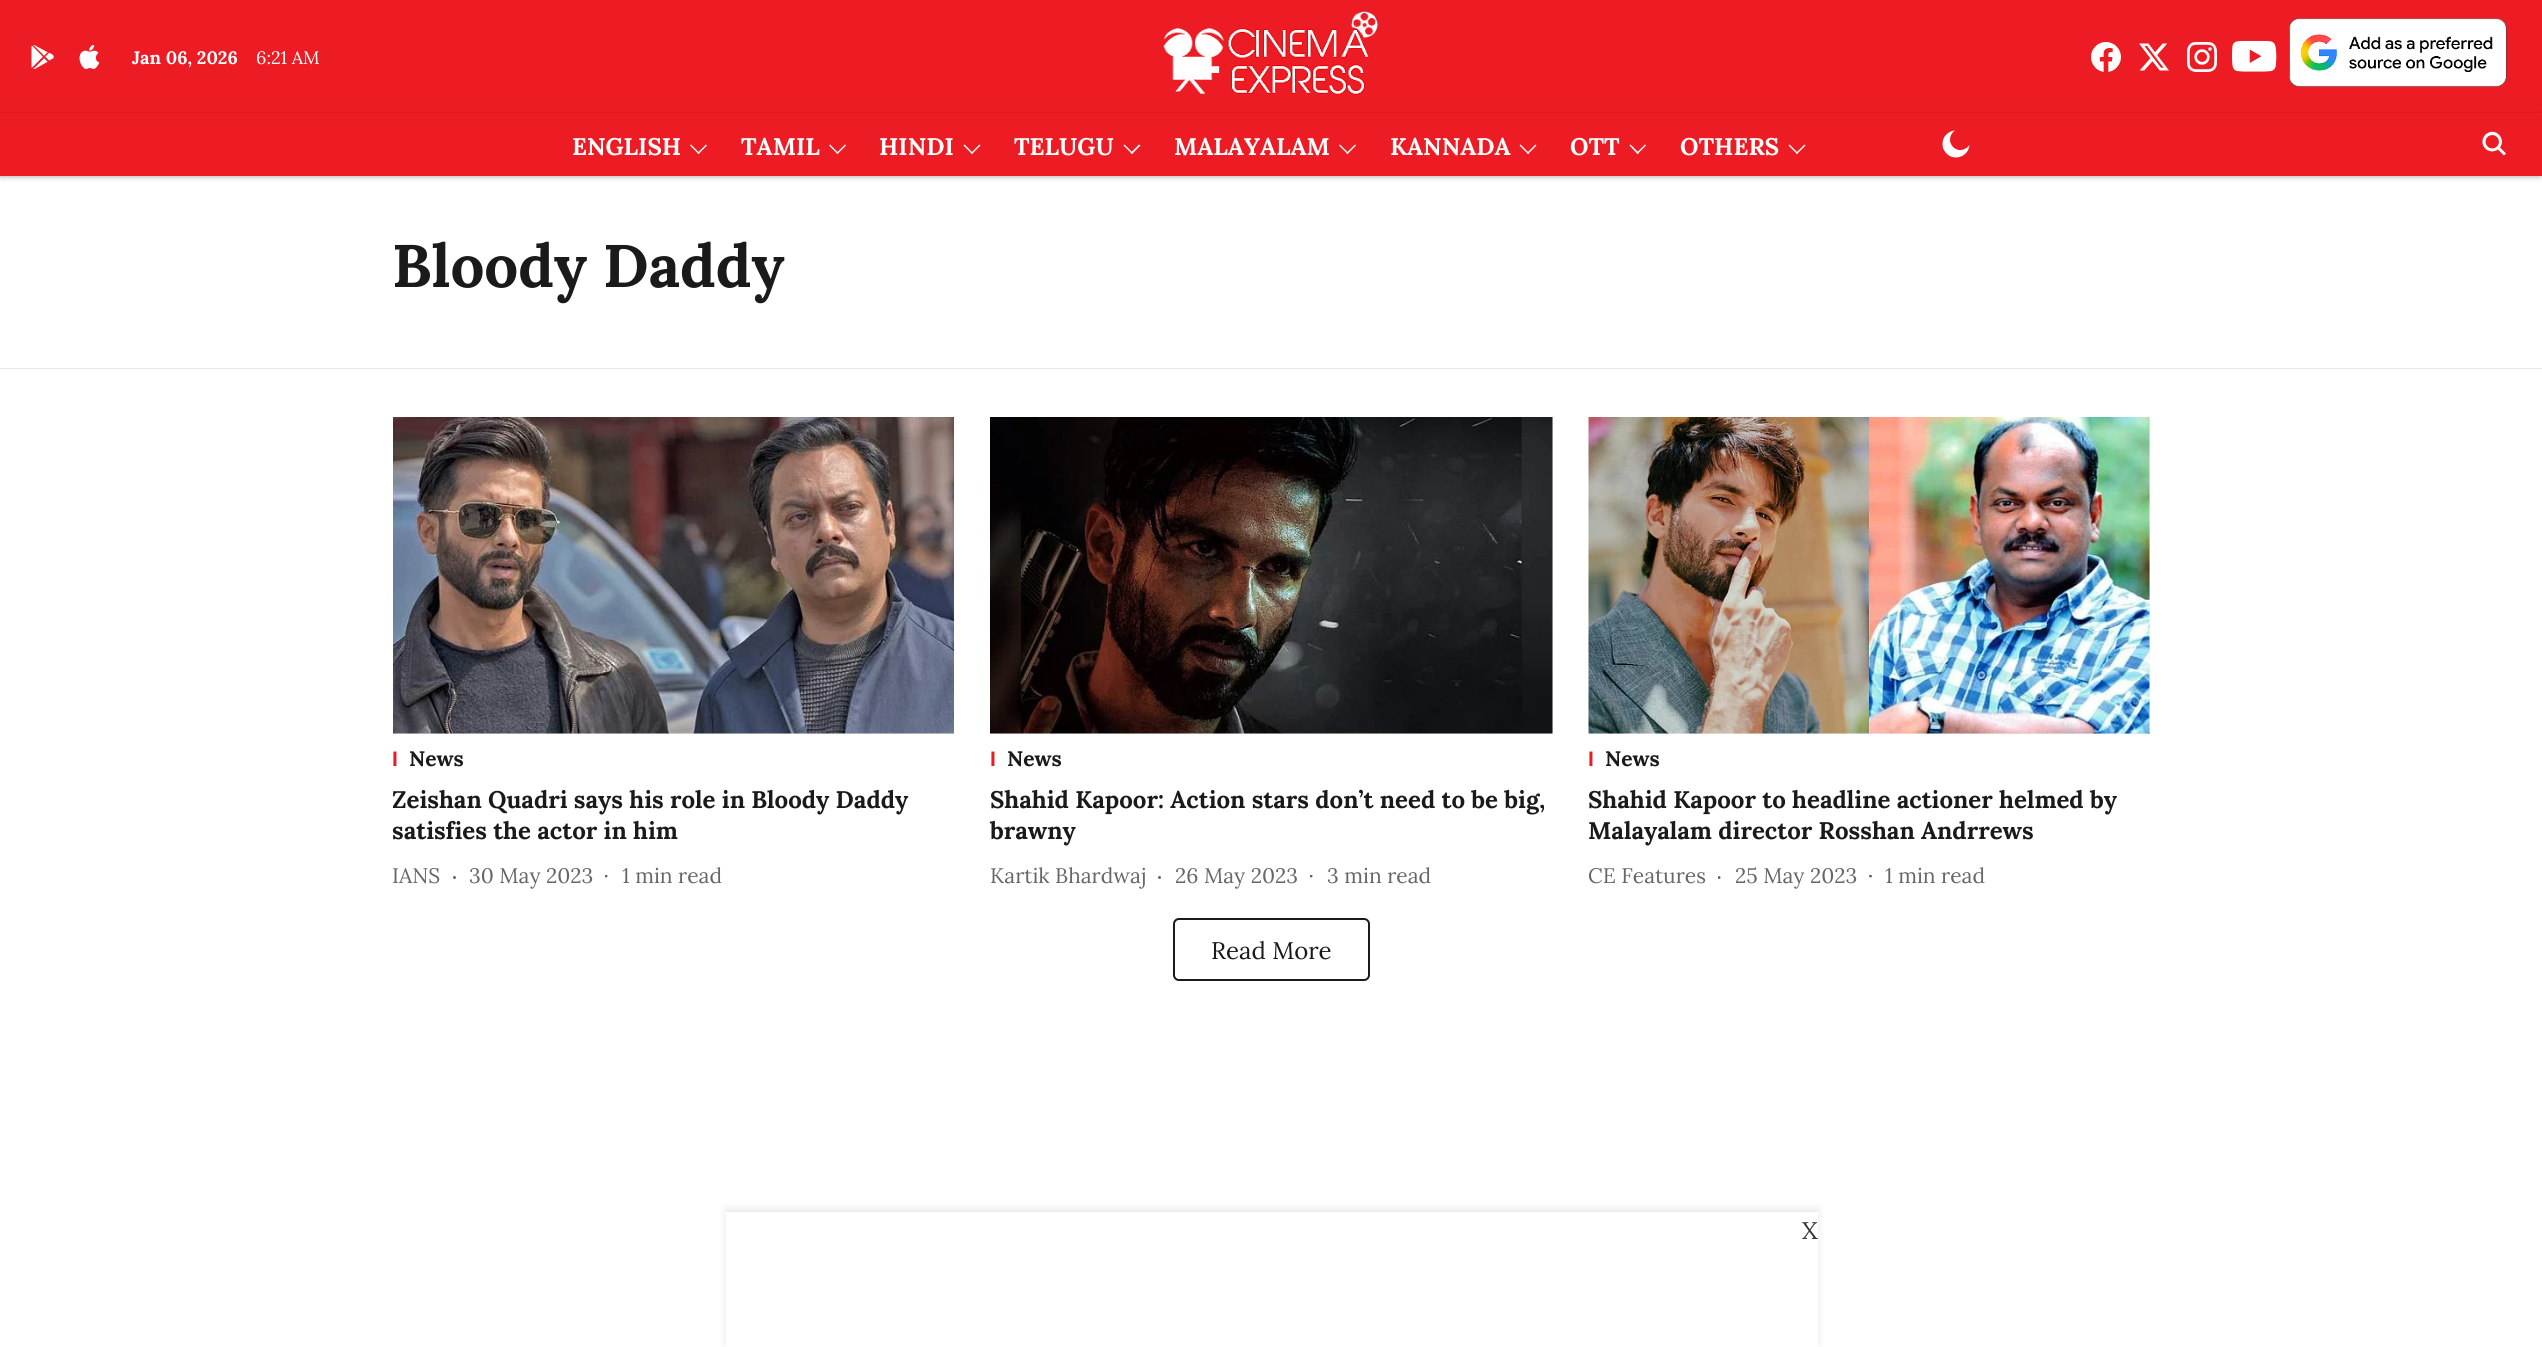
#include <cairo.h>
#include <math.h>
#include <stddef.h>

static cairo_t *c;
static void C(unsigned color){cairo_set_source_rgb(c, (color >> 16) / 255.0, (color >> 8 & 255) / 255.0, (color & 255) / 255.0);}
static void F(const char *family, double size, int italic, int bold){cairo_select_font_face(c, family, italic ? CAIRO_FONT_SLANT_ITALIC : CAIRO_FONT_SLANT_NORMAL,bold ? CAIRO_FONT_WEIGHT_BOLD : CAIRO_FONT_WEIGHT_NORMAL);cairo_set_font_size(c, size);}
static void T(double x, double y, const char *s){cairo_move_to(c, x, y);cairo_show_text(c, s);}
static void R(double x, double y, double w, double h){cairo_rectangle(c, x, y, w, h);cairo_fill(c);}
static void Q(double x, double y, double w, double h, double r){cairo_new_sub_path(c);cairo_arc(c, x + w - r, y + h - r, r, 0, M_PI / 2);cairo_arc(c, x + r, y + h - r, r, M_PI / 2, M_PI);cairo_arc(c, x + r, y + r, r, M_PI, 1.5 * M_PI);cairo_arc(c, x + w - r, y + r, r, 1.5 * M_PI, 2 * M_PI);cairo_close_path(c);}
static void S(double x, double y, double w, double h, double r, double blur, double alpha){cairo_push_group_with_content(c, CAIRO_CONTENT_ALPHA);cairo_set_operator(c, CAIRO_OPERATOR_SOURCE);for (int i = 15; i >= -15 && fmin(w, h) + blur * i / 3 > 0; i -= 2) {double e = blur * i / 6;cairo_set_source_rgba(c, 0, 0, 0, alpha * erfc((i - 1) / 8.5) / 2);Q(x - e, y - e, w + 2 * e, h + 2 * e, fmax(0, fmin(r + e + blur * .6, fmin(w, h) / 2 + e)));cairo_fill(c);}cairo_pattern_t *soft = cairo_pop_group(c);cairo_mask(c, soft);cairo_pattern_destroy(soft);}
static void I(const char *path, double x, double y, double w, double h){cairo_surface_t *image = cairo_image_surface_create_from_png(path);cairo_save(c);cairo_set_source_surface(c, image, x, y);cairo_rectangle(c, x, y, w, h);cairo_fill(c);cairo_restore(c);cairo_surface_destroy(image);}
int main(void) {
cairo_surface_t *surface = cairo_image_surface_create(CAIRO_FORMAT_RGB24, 2542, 1347);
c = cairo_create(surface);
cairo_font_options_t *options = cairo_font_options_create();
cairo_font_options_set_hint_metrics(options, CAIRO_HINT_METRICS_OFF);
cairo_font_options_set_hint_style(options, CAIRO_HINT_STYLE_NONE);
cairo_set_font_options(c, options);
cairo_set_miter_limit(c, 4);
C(0xffffff);
cairo_paint(c);
C(0xed1c24);
R(0,0,2542,113);
I("1.png",31,45,23,24);
I("2.png",79,45,21,24);
F("Lora",18,0,1);
C(0xffffff);
T(132,64,"Jan 06, 2026");
F("Lora",18,0,0);
T(256,64,"6:21 AM");
I("3.png",1163,11,215,84);
I("4.png",2091,42,30,30);
I("5.png",2139,43,30,28);
I("6.png",2187,42,30,30);
I("7.png",2232,40,45,32);
I("8.png",2289,18,218,69);
C(0x000000);
S(0,116,2540,60,0,3,.39);
C(0xed1c24);
R(0,113,2542,63);
F("Lora",24,0,1);
C(0xffffff);
T(572,155,"ENGLISH");
cairo_new_path(c);
cairo_move_to(c,706,144.5);
cairo_line_to(c,707,145.5);
cairo_line_to(c,698.5,154);
cairo_line_to(c,697.5,153);
cairo_close_path(c);
cairo_fill(c);
cairo_new_path(c);
cairo_move_to(c,691,144.5);
cairo_line_to(c,699.5,153);
cairo_line_to(c,698.5,154);
cairo_line_to(c,690,145.5);
cairo_close_path(c);
cairo_fill(c);
T(741,155,"TAMIL");
cairo_new_path(c);
cairo_move_to(c,845,144.5);
cairo_line_to(c,846,145.5);
cairo_line_to(c,837.5,154);
cairo_line_to(c,836.5,153);
cairo_close_path(c);
cairo_fill(c);
cairo_new_path(c);
cairo_move_to(c,830,144.5);
cairo_line_to(c,838.5,153);
cairo_line_to(c,837.5,154);
cairo_line_to(c,829,145.5);
cairo_close_path(c);
cairo_fill(c);
T(879,155,"HINDI");
cairo_new_path(c);
cairo_move_to(c,979.5,144.5);
cairo_line_to(c,980.5,145.5);
cairo_line_to(c,972,154);
cairo_line_to(c,971,153);
cairo_close_path(c);
cairo_fill(c);
cairo_new_path(c);
cairo_move_to(c,964.5,144.5);
cairo_line_to(c,973,153);
cairo_line_to(c,972,154);
cairo_line_to(c,963.5,145.5);
cairo_close_path(c);
cairo_fill(c);
T(1014,155,"TELUGU");
cairo_new_path(c);
cairo_move_to(c,1139,144.5);
cairo_line_to(c,1140.5,145.5);
cairo_line_to(c,1132,154);
cairo_line_to(c,1130.5,153);
cairo_close_path(c);
cairo_fill(c);
cairo_new_path(c);
cairo_move_to(c,1124.5,144.5);
cairo_line_to(c,1133,153);
cairo_line_to(c,1132,154);
cairo_line_to(c,1123.5,145.5);
cairo_close_path(c);
cairo_fill(c);
T(1174,155,"MALAYALAM");
cairo_new_path(c);
cairo_move_to(c,1355,144.5);
cairo_line_to(c,1356,145.5);
cairo_line_to(c,1347.5,154);
cairo_line_to(c,1346.5,153);
cairo_close_path(c);
cairo_fill(c);
cairo_new_path(c);
cairo_move_to(c,1340,144.5);
cairo_line_to(c,1348.5,153);
cairo_line_to(c,1347.5,154);
cairo_line_to(c,1339,145.5);
cairo_close_path(c);
cairo_fill(c);
T(1390,155,"KANNADA");
cairo_new_path(c);
cairo_move_to(c,1535.5,144.5);
cairo_line_to(c,1536.5,145.5);
cairo_line_to(c,1528,154);
cairo_line_to(c,1527,153);
cairo_close_path(c);
cairo_fill(c);
cairo_new_path(c);
cairo_move_to(c,1520.5,144.5);
cairo_line_to(c,1529,153);
cairo_line_to(c,1528,154);
cairo_line_to(c,1519.5,145.5);
cairo_close_path(c);
cairo_fill(c);
T(1570,155,"OTT");
cairo_new_path(c);
cairo_move_to(c,1645,144.5);
cairo_line_to(c,1646,145.5);
cairo_line_to(c,1637.5,154);
cairo_line_to(c,1636.5,153);
cairo_close_path(c);
cairo_fill(c);
cairo_new_path(c);
cairo_move_to(c,1630.5,144.5);
cairo_line_to(c,1639,153);
cairo_line_to(c,1637.5,154);
cairo_line_to(c,1629.5,145.5);
cairo_close_path(c);
cairo_fill(c);
T(1680,155,"OTHERS");
cairo_new_path(c);
cairo_move_to(c,1804.5,144.5);
cairo_line_to(c,1805.5,145.5);
cairo_line_to(c,1797,154);
cairo_line_to(c,1796,153);
cairo_close_path(c);
cairo_fill(c);
cairo_new_path(c);
cairo_move_to(c,1789.5,144.5);
cairo_line_to(c,1798,153);
cairo_line_to(c,1797,154);
cairo_line_to(c,1788.5,145.5);
cairo_close_path(c);
cairo_fill(c);
I("9.png",1942,130,28,28);
I("10.png",2482,131,24,25);
C(0xe6e6e6);
R(0,368,2542,1);
F("Lora",60,0,1);
C(0x1a1a1a);
T(392,287,"Bloody Daddy");
C(0xf0f0f0);
R(393,733,561,1);
I("11.png",393,417,561,317);
F("Liberation Sans",21,0,1);
C(0xed1c24);
T(392,766,"I");
F("Lora",21,0,1);
C(0x1a1a1a);
T(409,766,"News");
F("Lora",24,0,1);
T(392,808,"Zeishan Quadri says his role in Bloody Daddy");
T(392,839,"satisfies the actor in him");
F("Lora",21,0,0);
C(0x666666);
T(392,883,"IANS");
cairo_new_path(c);
cairo_arc(c,454.5,877.5,1.5,0,2 * M_PI);
cairo_fill(c);
T(469,883,"30 May 2023");
cairo_save(c);
cairo_rectangle(c,605,875,5,5);
cairo_clip(c);
cairo_arc(c,606,876,1.5,0,2 * M_PI);
cairo_fill(c);
cairo_restore(c);
T(622,883,"1 min read");
C(0xf0f0f0);
R(990,417,563,317);
I("12.png",990,417,563,317);
F("Liberation Sans",21,0,1);
C(0xed1c24);
T(990,766,"I");
F("Lora",21,0,1);
C(0x1a1a1a);
T(1007,766,"News");
F("Lora",24,0,1);
T(990,808,"Shahid Kapoor: Action stars don’t need to be big,");
T(990,839,"brawny");
F("Lora",21,0,0);
C(0x666666);
T(990,883,"Kartik Bhardwaj");
cairo_new_path(c);
cairo_arc(c,1159.5,877.5,1.5,0,2 * M_PI);
cairo_fill(c);
T(1175,883,"26 May 2023");
cairo_save(c);
cairo_rectangle(c,1310,875,5,5);
cairo_clip(c);
cairo_arc(c,1311,876,1.5,0,2 * M_PI);
cairo_fill(c);
cairo_restore(c);
T(1327,883,"3 min read");
C(0xf0f0f0);
R(1589,417,561,317);
I("13.png",1588,417,562,317);
F("Liberation Sans",21,0,1);
C(0xed1c24);
T(1588,766,"I");
F("Lora",21,0,1);
C(0x1a1a1a);
T(1605,766,"News");
F("Lora",24,0,1);
T(1588,808,"Shahid Kapoor to headline actioner helmed by");
T(1588,839,"Malayalam director Rosshan Andrrews");
F("Lora",21,0,0);
C(0x666666);
T(1588,883,"CE Features");
cairo_save(c);
cairo_rectangle(c,1718,876,5,5);
cairo_clip(c);
cairo_arc(c,1719,877.5,1.5,0,2 * M_PI);
cairo_fill(c);
cairo_restore(c);
T(1735,883,"25 May 2023");
cairo_save(c);
cairo_rectangle(c,1869,875,5,5);
cairo_clip(c);
cairo_arc(c,1870.5,876,1.5,0,2 * M_PI);
cairo_fill(c);
cairo_restore(c);
T(1885,883,"1 min read");
Q(1174,919,195,61,5);
C(0x1a1a1a);
cairo_stroke(c);
F("Lora",24,0,0);
T(1211,959,"Read More");
cairo_save(c);
cairo_set_fill_rule(c,CAIRO_FILL_RULE_EVEN_ODD);
cairo_new_path(c);
cairo_move_to(c,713,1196);
cairo_line_to(c,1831,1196);
cairo_line_to(c,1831,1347);
cairo_line_to(c,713,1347);
cairo_close_path(c);
cairo_move_to(c,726,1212);
cairo_line_to(c,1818,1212);
cairo_line_to(c,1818,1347);
cairo_line_to(c,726,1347);
cairo_close_path(c);
cairo_clip(c);
C(0x000000);
S(726,1209,1092,135,0,4,.1);
cairo_restore(c);
C(0x333333);
T(1802,1239,"X");
cairo_surface_write_to_png(surface, "o.png");
cairo_font_options_destroy(options);
cairo_destroy(c);
cairo_surface_destroy(surface);
return 0;
}
